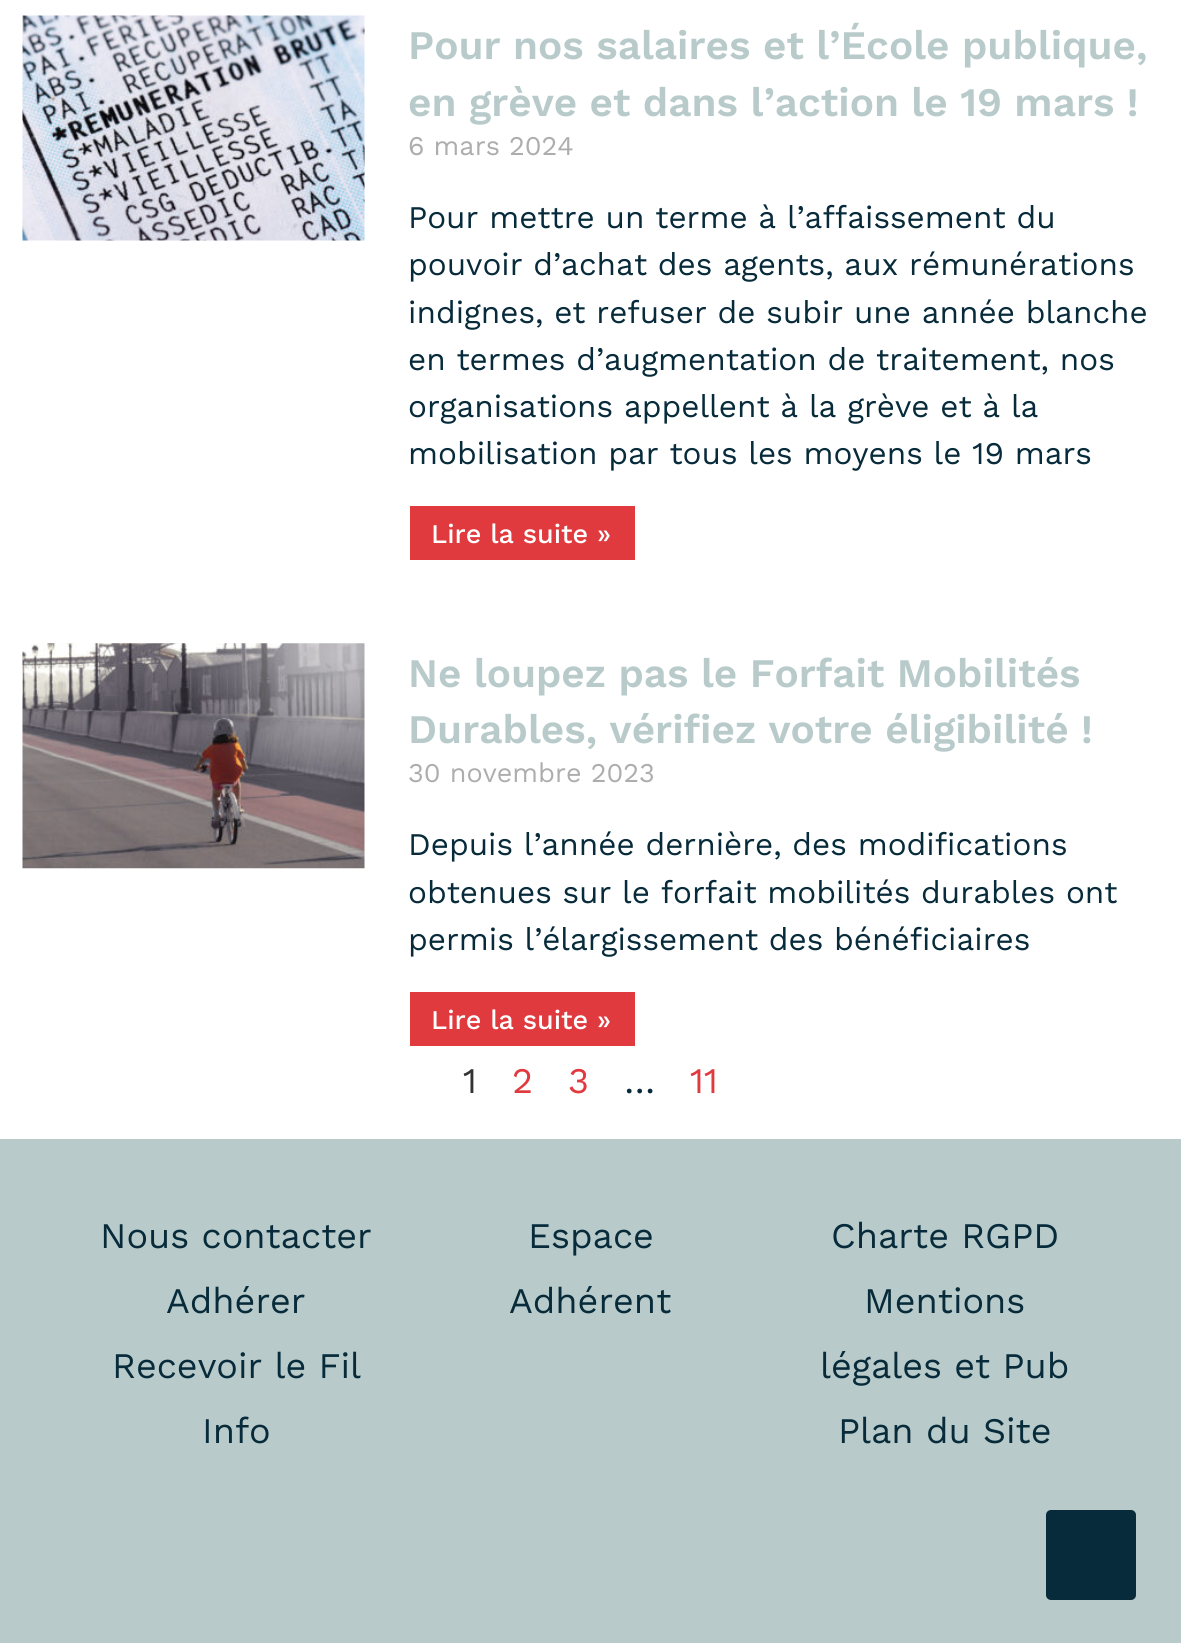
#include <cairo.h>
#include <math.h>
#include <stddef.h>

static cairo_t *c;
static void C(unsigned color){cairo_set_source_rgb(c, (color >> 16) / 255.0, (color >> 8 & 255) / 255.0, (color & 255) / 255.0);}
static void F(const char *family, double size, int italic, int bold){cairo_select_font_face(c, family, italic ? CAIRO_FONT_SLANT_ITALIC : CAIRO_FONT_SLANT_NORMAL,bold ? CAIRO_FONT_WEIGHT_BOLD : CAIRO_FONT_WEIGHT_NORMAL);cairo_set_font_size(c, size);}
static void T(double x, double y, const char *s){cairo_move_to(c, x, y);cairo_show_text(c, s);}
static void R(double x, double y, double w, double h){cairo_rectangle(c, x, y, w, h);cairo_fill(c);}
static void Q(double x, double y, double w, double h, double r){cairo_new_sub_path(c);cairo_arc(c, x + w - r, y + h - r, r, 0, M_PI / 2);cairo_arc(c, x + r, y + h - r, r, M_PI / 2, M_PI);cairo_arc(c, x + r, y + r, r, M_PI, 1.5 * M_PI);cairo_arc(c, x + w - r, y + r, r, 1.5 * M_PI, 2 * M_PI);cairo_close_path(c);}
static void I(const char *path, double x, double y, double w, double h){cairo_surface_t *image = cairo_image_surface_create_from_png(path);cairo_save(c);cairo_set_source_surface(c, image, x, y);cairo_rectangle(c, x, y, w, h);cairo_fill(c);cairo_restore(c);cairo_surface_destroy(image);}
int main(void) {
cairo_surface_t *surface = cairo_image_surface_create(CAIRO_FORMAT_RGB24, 1181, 1643);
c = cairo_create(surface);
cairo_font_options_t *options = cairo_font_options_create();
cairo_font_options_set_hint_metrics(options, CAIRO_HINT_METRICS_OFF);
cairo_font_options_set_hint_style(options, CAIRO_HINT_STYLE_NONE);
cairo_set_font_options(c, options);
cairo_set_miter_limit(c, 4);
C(0xffffff);
cairo_paint(c);
I("1.png",22,15,343,226);
F("Work Sans SemiBold",40.5,0,0);
C(0xb8caca);
T(408,59,"Pour nos salaires et l’École publique,");
T(408,116,"en grève et dans l’action le 19 mars !");
F("Work Sans",27,0,0);
C(0xadadad);
T(408,155,"6 mars 2024");
F("Work Sans",31.5,0,0);
C(0x072b3a);
T(408,228,"Pour mettre un terme à l’affaissement du");
T(408,275,"pouvoir d’achat des agents, aux rémunérations");
T(408,323,"indignes, et refuser de subir une année blanche");
T(408,370,"en termes d’augmentation de traitement, nos");
T(408,417,"organisations appellent à la grève et à la");
T(408,464,"mobilisation par tous les moyens le 19 mars");
C(0xe03a3e);
R(410,506,225,54);
F("Work Sans Medium",27,0,0);
C(0xffffff);
T(431,543,"Lire la suite »");
I("2.png",22,643,343,226);
F("Work Sans SemiBold",40.5,0,0);
C(0xb8caca);
T(408,687,"Ne loupez pas le Forfait Mobilités");
T(408,743,"Durables, vérifiez votre éligibilité !");
F("Work Sans",27,0,0);
C(0xadadad);
T(408,782,"30 novembre 2023");
F("Work Sans",31.5,0,0);
C(0x072b3a);
T(408,855,"Depuis l’année dernière, des modifications");
T(408,903,"obtenues sur le forfait mobilités durables ont");
T(408,950,"permis l’élargissement des bénéficiaires");
C(0xe03a3e);
R(410,992,225,54);
F("Work Sans Medium",27,0,0);
C(0xffffff);
T(431,1029,"Lire la suite »");
F("Work Sans",36,0,0);
C(0x333333);
T(463,1093,"1");
C(0xe03a3e);
T(512,1093,"2");
T(568,1093,"3");
C(0x072b3a);
T(624,1093,"…");
C(0xe03a3e);
T(690,1093,"11");
C(0xb8caca);
R(0,1139,1181,504);
C(0x072b3a);
T(100,1248,"Nous contacter");
T(166,1313,"Adhérer");
T(112,1378,"Recevoir le Fil");
T(202,1443,"Info");
T(528,1248,"Espace");
T(509,1313,"Adhérent");
T(831,1248,"Charte RGPD");
T(864,1313,"Mentions");
T(820,1378,"légales et Pub");
T(838,1443,"Plan du Site");
Q(1046,1510,90,90,5);
cairo_fill(c);
cairo_surface_write_to_png(surface, "o.png");
cairo_font_options_destroy(options);
cairo_destroy(c);
cairo_surface_destroy(surface);
return 0;
}
